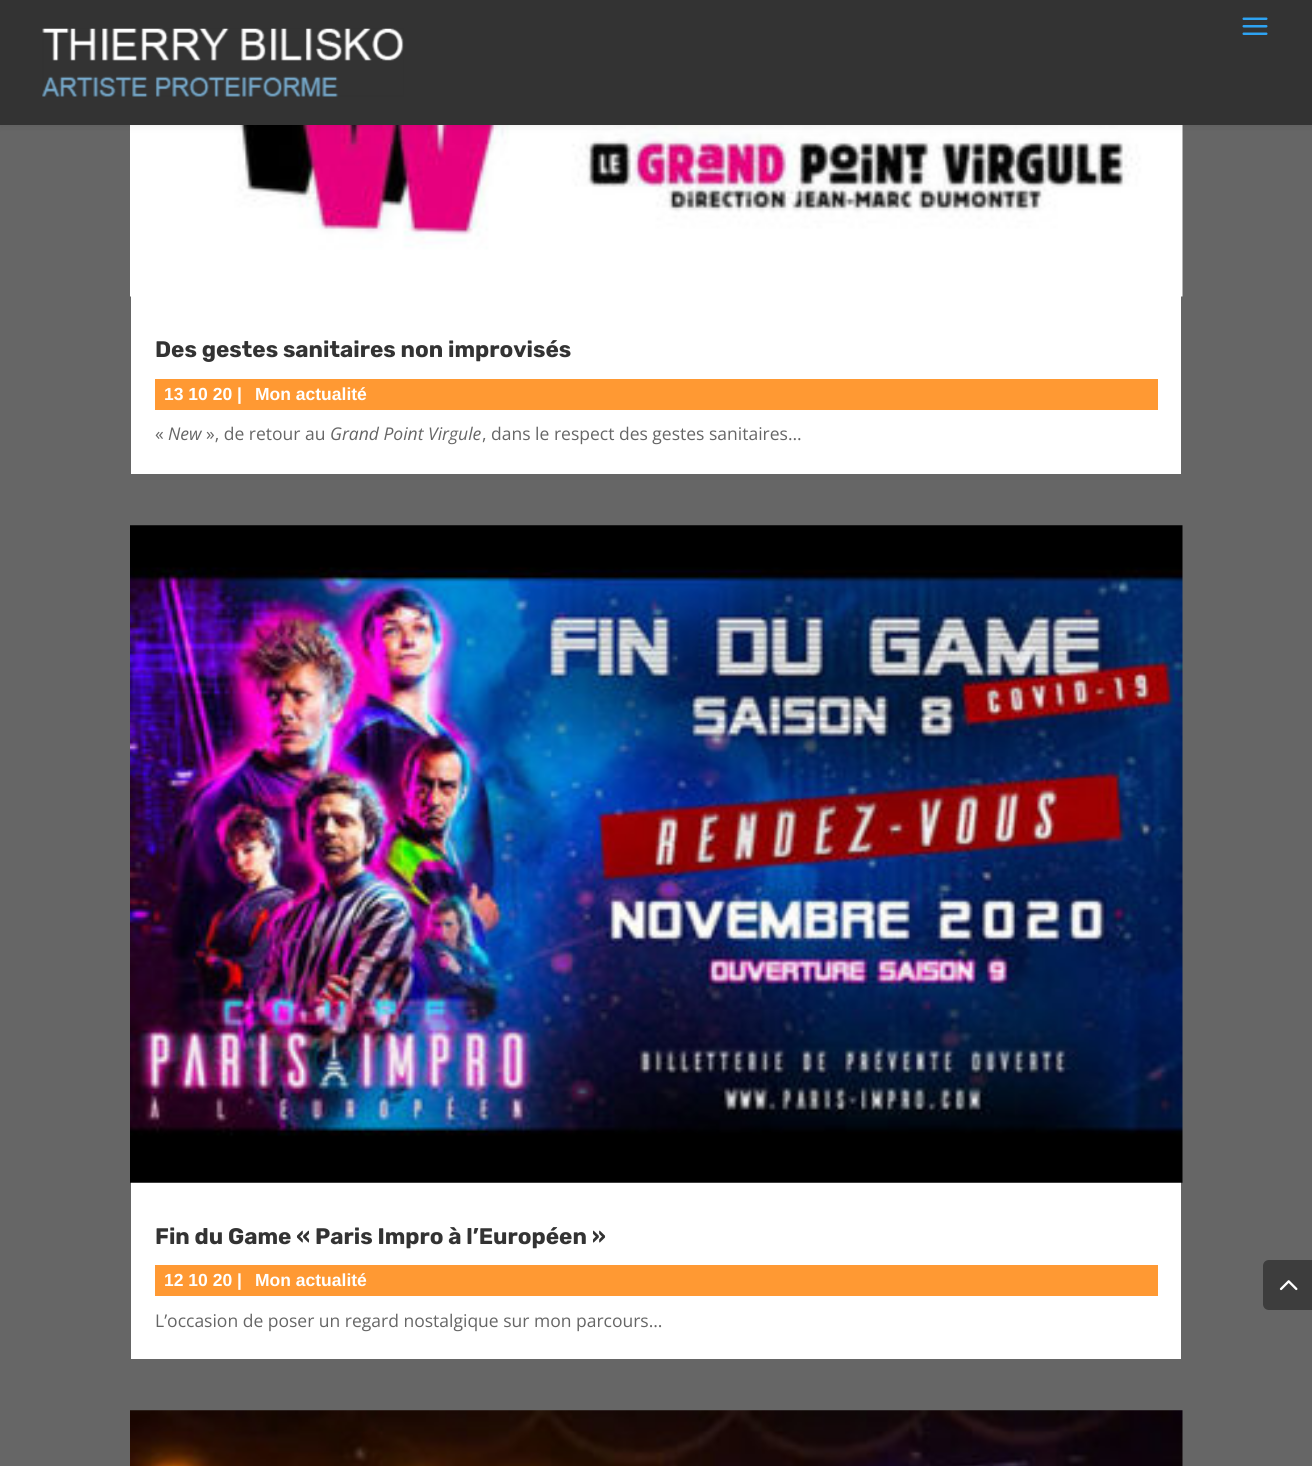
#include <cairo.h>
#include <math.h>
#include <stddef.h>

static cairo_t *c;
static void C(unsigned color){cairo_set_source_rgb(c, (color >> 16) / 255.0, (color >> 8 & 255) / 255.0, (color & 255) / 255.0);}
static void F(const char *family, double size, int italic, int bold){cairo_select_font_face(c, family, italic ? CAIRO_FONT_SLANT_ITALIC : CAIRO_FONT_SLANT_NORMAL,bold ? CAIRO_FONT_WEIGHT_BOLD : CAIRO_FONT_WEIGHT_NORMAL);cairo_set_font_size(c, size);}
static void T(double x, double y, const char *s){cairo_move_to(c, x, y);cairo_show_text(c, s);}
static void R(double x, double y, double w, double h){cairo_rectangle(c, x, y, w, h);cairo_fill(c);}
static void Q(double x, double y, double w, double h, double r){cairo_new_sub_path(c);cairo_arc(c, x + w - r, y + h - r, r, 0, M_PI / 2);cairo_arc(c, x + r, y + h - r, r, M_PI / 2, M_PI);cairo_arc(c, x + r, y + r, r, M_PI, 1.5 * M_PI);cairo_arc(c, x + w - r, y + r, r, 1.5 * M_PI, 2 * M_PI);cairo_close_path(c);}
static void S(double x, double y, double w, double h, double r, double blur, double alpha){cairo_push_group_with_content(c, CAIRO_CONTENT_ALPHA);cairo_set_operator(c, CAIRO_OPERATOR_SOURCE);for (int i = 15; i >= -15 && fmin(w, h) + blur * i / 3 > 0; i -= 2) {double e = blur * i / 6;cairo_set_source_rgba(c, 0, 0, 0, alpha * erfc((i - 1) / 8.5) / 2);Q(x - e, y - e, w + 2 * e, h + 2 * e, fmax(0, fmin(r + e + blur * .6, fmin(w, h) / 2 + e)));cairo_fill(c);}cairo_pattern_t *soft = cairo_pop_group(c);cairo_mask(c, soft);cairo_pattern_destroy(soft);}
static void I(const char *path, double x, double y, double w, double h){cairo_surface_t *image = cairo_image_surface_create_from_png(path);cairo_save(c);cairo_set_source_surface(c, image, x, y);cairo_rectangle(c, x, y, w, h);cairo_fill(c);cairo_restore(c);cairo_surface_destroy(image);}
int main(void) {
cairo_surface_t *surface = cairo_image_surface_create(CAIRO_FORMAT_RGB24, 1312, 1466);
c = cairo_create(surface);
cairo_font_options_t *options = cairo_font_options_create();
cairo_font_options_set_hint_metrics(options, CAIRO_HINT_METRICS_OFF);
cairo_font_options_set_hint_style(options, CAIRO_HINT_STYLE_NONE);
cairo_set_font_options(c, options);
cairo_set_miter_limit(c, 4);
C(0x666666);
cairo_paint(c);
C(0xffffff);
R(131,296,1050,178);
I("3.png",130,125,1053,172);
C(0x000000);
S(0,0,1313,125,0,4.5,.1);
C(0x333333);
R(0,0,1312,125);
I("1.png",1242,17,26,18);
I("2.png",42,28,362,69);
F("Rubik",22.5,0,1);
T(155,357,"Des gestes sanitaires non improvisés");
C(0xff9933);
R(155,379,1003,31);
F("Arimo",17.5,0,1);
C(0xffffff);
T(164,400,"13 10 20 |");
T(255,400,"Mon actualité");
F("Open Sans",17.5,0,0);
C(0x666666);
T(155,440,"«");
F("Open Sans",17.5,1,0);
T(168,440,"New");
F("Open Sans",17.5,0,0);
T(206,440,"», de retour au");
F("Open Sans",17.5,1,0);
T(330,440,"Grand Point Virgule");
F("Open Sans",17.5,0,0);
T(482,440,", dans le respect des gestes sanitaires…");
C(0xffffff);
R(131,1182,1050,177);
I("4.png",130,525,1053,658);
F("Rubik",22.5,0,1);
C(0x333333);
T(155,1244,"Fin du Game « Paris Impro à l’Européen »");
C(0xff9933);
R(155,1265,1003,31);
F("Arimo",17.5,0,1);
C(0xffffff);
T(164,1286,"12 10 20 |");
T(255,1286,"Mon actualité");
F("Open Sans",17.5,0,0);
C(0x666666);
T(155,1327,"L’occasion de poser un regard nostalgique sur mon parcours…");
I("5.png",130,1410,1053,56);
C(0x3d3d3d);
cairo_new_path(c);
cairo_move_to(c,1269,1260);
cairo_line_to(c,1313,1260);
cairo_line_to(c,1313,1310);
cairo_line_to(c,1269,1310);
cairo_curve_to(c,1265.5,1310,1263,1307.5,1263,1304);
cairo_line_to(c,1263,1266);
cairo_curve_to(c,1263,1262.5,1265.5,1260,1269,1260);
cairo_close_path(c);
cairo_fill(c);
I("6.png",1279,1280,19,11);
cairo_surface_write_to_png(surface, "o.png");
cairo_font_options_destroy(options);
cairo_destroy(c);
cairo_surface_destroy(surface);
return 0;
}
